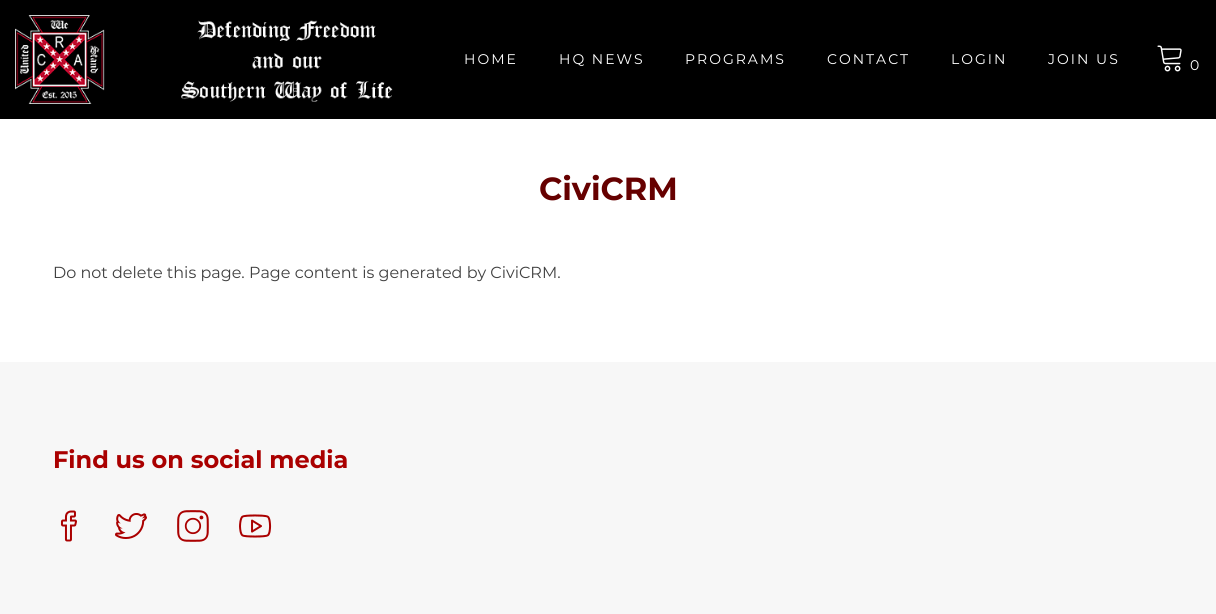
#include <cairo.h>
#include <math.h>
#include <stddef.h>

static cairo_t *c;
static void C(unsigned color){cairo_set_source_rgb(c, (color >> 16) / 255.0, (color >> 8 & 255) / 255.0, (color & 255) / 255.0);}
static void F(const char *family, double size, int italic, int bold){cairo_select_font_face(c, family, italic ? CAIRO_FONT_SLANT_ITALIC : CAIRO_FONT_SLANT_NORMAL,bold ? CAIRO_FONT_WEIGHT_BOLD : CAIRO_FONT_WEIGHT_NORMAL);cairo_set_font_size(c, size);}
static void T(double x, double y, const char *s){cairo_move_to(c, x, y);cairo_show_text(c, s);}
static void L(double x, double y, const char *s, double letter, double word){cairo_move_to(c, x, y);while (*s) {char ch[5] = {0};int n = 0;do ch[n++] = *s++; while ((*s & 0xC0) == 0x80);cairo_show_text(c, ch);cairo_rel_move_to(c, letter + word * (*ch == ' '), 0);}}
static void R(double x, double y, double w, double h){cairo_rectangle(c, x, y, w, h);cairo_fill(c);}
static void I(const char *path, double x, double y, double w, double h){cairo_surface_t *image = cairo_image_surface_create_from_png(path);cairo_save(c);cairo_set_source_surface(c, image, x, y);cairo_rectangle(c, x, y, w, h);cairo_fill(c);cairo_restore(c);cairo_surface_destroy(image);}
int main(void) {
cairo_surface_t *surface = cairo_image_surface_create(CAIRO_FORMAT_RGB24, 1216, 614);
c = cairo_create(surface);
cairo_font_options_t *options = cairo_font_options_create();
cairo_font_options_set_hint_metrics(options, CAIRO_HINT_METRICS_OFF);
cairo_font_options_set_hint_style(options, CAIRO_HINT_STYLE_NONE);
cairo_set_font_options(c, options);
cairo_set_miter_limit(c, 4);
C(0xffffff);
cairo_paint(c);
C(0x000000);
R(0,0,1216,119);
I("1.png",15,15,378,89);
F("Montserrat",14,0,0);
C(0xffffff);
L(464,64,"HOME",2,0);
L(559,64,"HQ NEWS",2,0);
L(685,64,"PROGRAMS",2,0);
L(827,64,"CONTACT",2,0);
L(951,64,"LOGIN",2,0);
L(1048,64,"JOIN US",2,0);
I("2.png",1157,45,25,27);
T(1190,70,"0");
F("Montserrat",32,0,1);
C(0x660000);
T(539,200,"CiviCRM");
F("Montserrat",16,0,0);
C(0x404040);
T(53,278,"Do not delete this page. Page content is generated by CiviCRM.");
C(0xf7f7f7);
R(0,362,1216,252);
F("Montserrat",24,0,1);
C(0xaa0000);
T(53,468,"Find us on social media");
I("3.png",60,510,17,32);
I("4.png",115,513,32,26);
I("5.png",177,510,32,32);
I("6.png",239,514,33,24);
cairo_surface_write_to_png(surface, "o.png");
cairo_font_options_destroy(options);
cairo_destroy(c);
cairo_surface_destroy(surface);
return 0;
}
